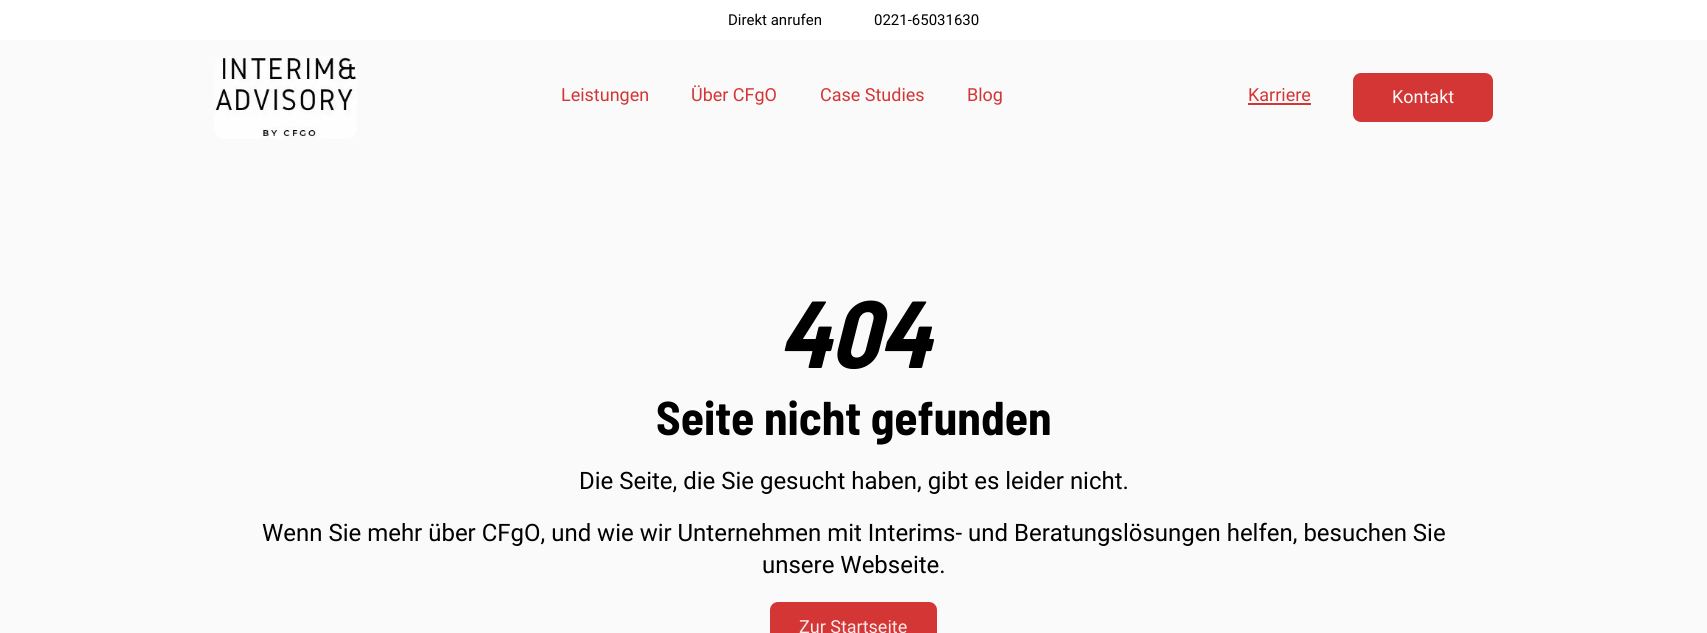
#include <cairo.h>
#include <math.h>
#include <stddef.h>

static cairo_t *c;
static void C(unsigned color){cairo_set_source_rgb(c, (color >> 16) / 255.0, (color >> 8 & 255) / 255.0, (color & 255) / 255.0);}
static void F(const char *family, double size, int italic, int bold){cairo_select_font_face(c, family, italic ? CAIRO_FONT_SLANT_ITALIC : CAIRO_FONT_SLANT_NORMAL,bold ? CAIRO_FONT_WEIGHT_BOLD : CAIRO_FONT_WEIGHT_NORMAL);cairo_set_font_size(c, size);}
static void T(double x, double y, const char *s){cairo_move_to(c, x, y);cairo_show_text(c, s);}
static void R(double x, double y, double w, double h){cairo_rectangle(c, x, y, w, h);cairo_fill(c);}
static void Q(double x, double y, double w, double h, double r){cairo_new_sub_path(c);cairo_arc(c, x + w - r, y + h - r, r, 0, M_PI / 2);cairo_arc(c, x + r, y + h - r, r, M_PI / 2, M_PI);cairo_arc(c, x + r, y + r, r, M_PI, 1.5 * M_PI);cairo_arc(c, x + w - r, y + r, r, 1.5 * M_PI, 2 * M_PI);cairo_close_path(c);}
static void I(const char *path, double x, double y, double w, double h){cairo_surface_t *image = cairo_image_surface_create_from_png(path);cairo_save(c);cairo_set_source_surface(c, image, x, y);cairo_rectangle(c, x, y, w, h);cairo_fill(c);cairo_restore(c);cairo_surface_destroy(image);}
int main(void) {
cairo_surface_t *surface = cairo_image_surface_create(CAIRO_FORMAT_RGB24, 1707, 633);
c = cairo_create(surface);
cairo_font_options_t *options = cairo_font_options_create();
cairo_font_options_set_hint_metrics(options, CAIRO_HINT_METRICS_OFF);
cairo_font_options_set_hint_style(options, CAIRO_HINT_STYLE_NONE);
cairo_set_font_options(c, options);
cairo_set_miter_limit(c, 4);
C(0xfafafa);
cairo_paint(c);
C(0xffffff);
R(0,0,1707,40);
F("Roboto",15,0,0);
C(0x000000);
T(728,25,"Direkt anrufen");
T(874,25,"0221-65031630");
I("1.png",214,56,143,83);
F("Roboto",18,0,0);
C(0xd43535);
T(561,101,"Leistungen");
T(691,101,"Über CFgO");
T(820,101,"Case Studies");
T(967,101,"Blog");
T(1248,101,"Karriere");
R(1248,103,63,2);
Q(1354,74,138,47,7);
cairo_fill_preserve(c);
cairo_stroke(c);
C(0xfafafa);
T(1392,103,"Kontakt");
F("Barlow Semi Condensed",95,1,1);
C(0x000000);
T(778,368,"404");
F("Barlow Semi Condensed",47.4,0,1);
T(656,435,"Seite nicht gefunden");
F("Roboto",24,0,0);
T(579,489,"Die Seite, die Sie gesucht haben, gibt es leider nicht.");
T(262,541,"Wenn Sie mehr über CFgO, und wie wir Unternehmen mit Interims- und Beratungslösungen helfen, besuchen Sie");
T(762,573,"unsere Webseite.");
C(0xd43535);
Q(771,603,165,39,7);
cairo_fill_preserve(c);
cairo_stroke(c);
F("Roboto",18,0,0);
C(0xfbeaea);
T(799,633,"Zur Startseite");
cairo_surface_write_to_png(surface, "o.png");
cairo_font_options_destroy(options);
cairo_destroy(c);
cairo_surface_destroy(surface);
return 0;
}
